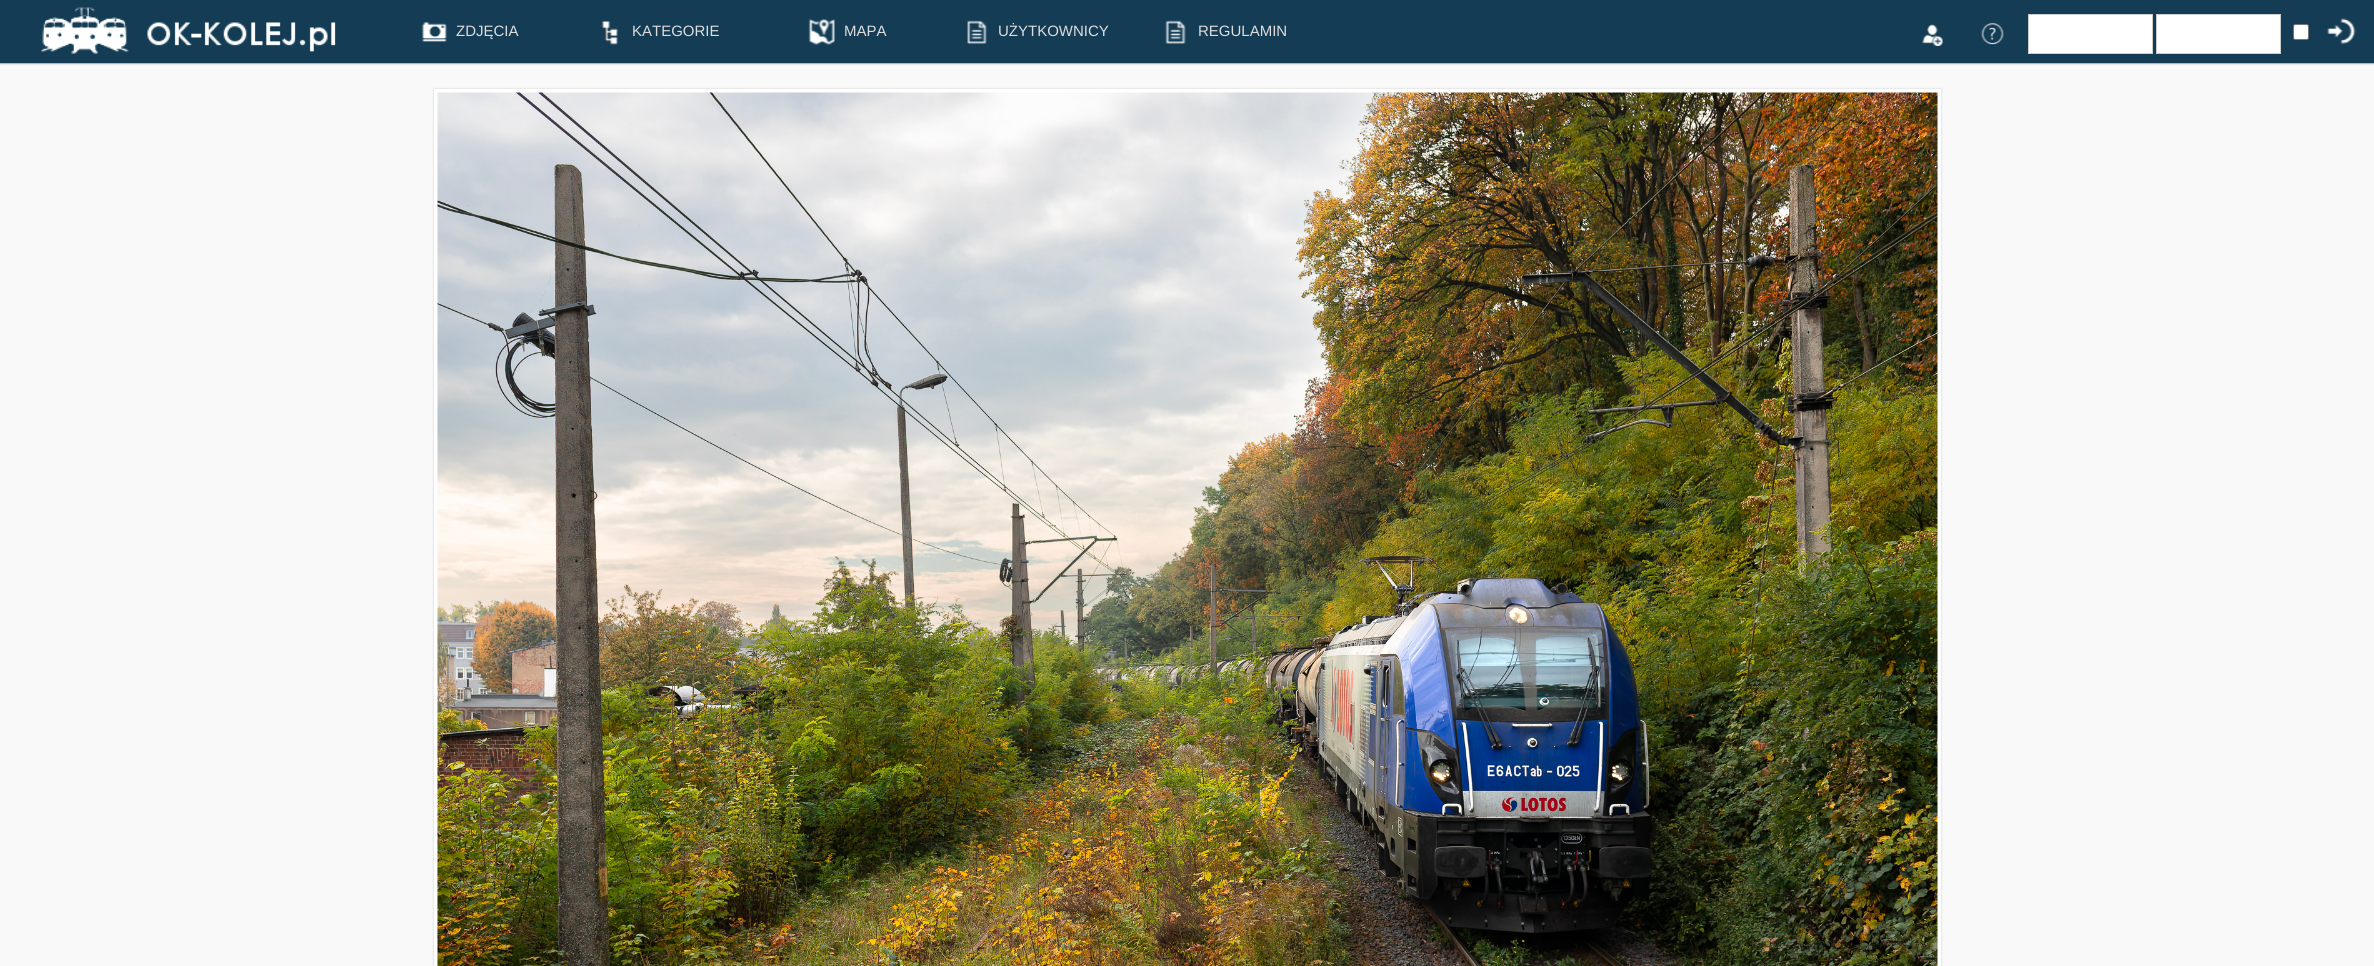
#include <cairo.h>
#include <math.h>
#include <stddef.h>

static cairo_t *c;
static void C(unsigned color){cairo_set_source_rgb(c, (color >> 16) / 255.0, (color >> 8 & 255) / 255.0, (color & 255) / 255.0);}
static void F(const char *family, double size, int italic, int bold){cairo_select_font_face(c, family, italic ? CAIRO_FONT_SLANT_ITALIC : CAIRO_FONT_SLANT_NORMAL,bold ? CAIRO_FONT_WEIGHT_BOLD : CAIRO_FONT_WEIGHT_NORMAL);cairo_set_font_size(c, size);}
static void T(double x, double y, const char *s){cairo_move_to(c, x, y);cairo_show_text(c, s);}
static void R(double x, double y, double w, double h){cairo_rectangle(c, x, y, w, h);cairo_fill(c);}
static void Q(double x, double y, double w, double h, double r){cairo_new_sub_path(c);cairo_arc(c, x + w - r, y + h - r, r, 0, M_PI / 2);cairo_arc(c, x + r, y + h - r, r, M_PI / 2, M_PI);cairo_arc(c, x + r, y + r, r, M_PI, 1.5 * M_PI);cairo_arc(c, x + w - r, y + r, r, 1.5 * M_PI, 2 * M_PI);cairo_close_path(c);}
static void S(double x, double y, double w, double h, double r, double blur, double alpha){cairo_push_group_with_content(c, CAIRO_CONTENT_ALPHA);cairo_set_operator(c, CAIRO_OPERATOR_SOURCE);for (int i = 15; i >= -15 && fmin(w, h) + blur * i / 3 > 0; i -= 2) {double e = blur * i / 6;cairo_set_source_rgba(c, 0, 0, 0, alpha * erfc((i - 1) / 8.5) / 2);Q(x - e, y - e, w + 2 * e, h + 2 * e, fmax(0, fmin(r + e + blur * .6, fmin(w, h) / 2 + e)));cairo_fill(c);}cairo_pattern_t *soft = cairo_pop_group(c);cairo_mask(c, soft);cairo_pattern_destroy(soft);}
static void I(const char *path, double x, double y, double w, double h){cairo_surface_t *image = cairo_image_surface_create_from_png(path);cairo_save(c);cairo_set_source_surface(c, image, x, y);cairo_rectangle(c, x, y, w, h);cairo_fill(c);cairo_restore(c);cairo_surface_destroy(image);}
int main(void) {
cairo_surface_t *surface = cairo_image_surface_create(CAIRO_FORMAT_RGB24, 2374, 966);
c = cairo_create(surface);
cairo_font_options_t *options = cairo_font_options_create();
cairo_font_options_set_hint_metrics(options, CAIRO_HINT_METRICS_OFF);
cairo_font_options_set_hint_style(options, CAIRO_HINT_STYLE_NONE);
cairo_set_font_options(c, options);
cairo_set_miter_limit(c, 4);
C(0xf9f9f9);
cairo_paint(c);
C(0x333333);
S(0,0,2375,63,0,1,1);
C(0x143d55);
R(0,0,2374,63);
I("1.png",41,7,295,47);
I("2.png",422,22,25,20);
F("Liberation Sans",15,0,0);
C(0xdddddd);
T(456,36,"ZDJĘCIA");
I("3.png",601,21,18,24);
T(632,36,"KATEGORIE");
I("4.png",808,19,27,26);
T(844,36,"MAPA");
I("5.png",967,20,20,24);
T(998,36,"UŻYTKOWNICY");
I("6.png",1165,20,21,24);
T(1198,36,"REGULAMIN");
I("7.png",1922,24,21,22);
I("8.png",1981,23,23,22);
C(0xffffff);
cairo_rectangle(c,2028.5,14.5,124,39);
cairo_fill_preserve(c);
C(0xcccccc);
cairo_set_line_width(c,1);
cairo_stroke(c);
C(0xffffff);
cairo_rectangle(c,2156.5,14.5,124,39);
cairo_fill_preserve(c);
C(0xcccccc);
cairo_stroke(c);
C(0xffffff);
Q(2293.5,24.5,15,15,2);
cairo_fill_preserve(c);
C(0x767676);
cairo_stroke(c);
I("9.png",2327,18,29,26);
C(0xcccccc);
S(434,89,1507,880,0,1,1);
cairo_rectangle(c,436,91,1503,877);
C(0xffffff);
cairo_set_line_width(c,4);
cairo_stroke(c);
I("10.png",437,92,1501,874);
cairo_surface_write_to_png(surface, "o.png");
cairo_font_options_destroy(options);
cairo_destroy(c);
cairo_surface_destroy(surface);
return 0;
}
